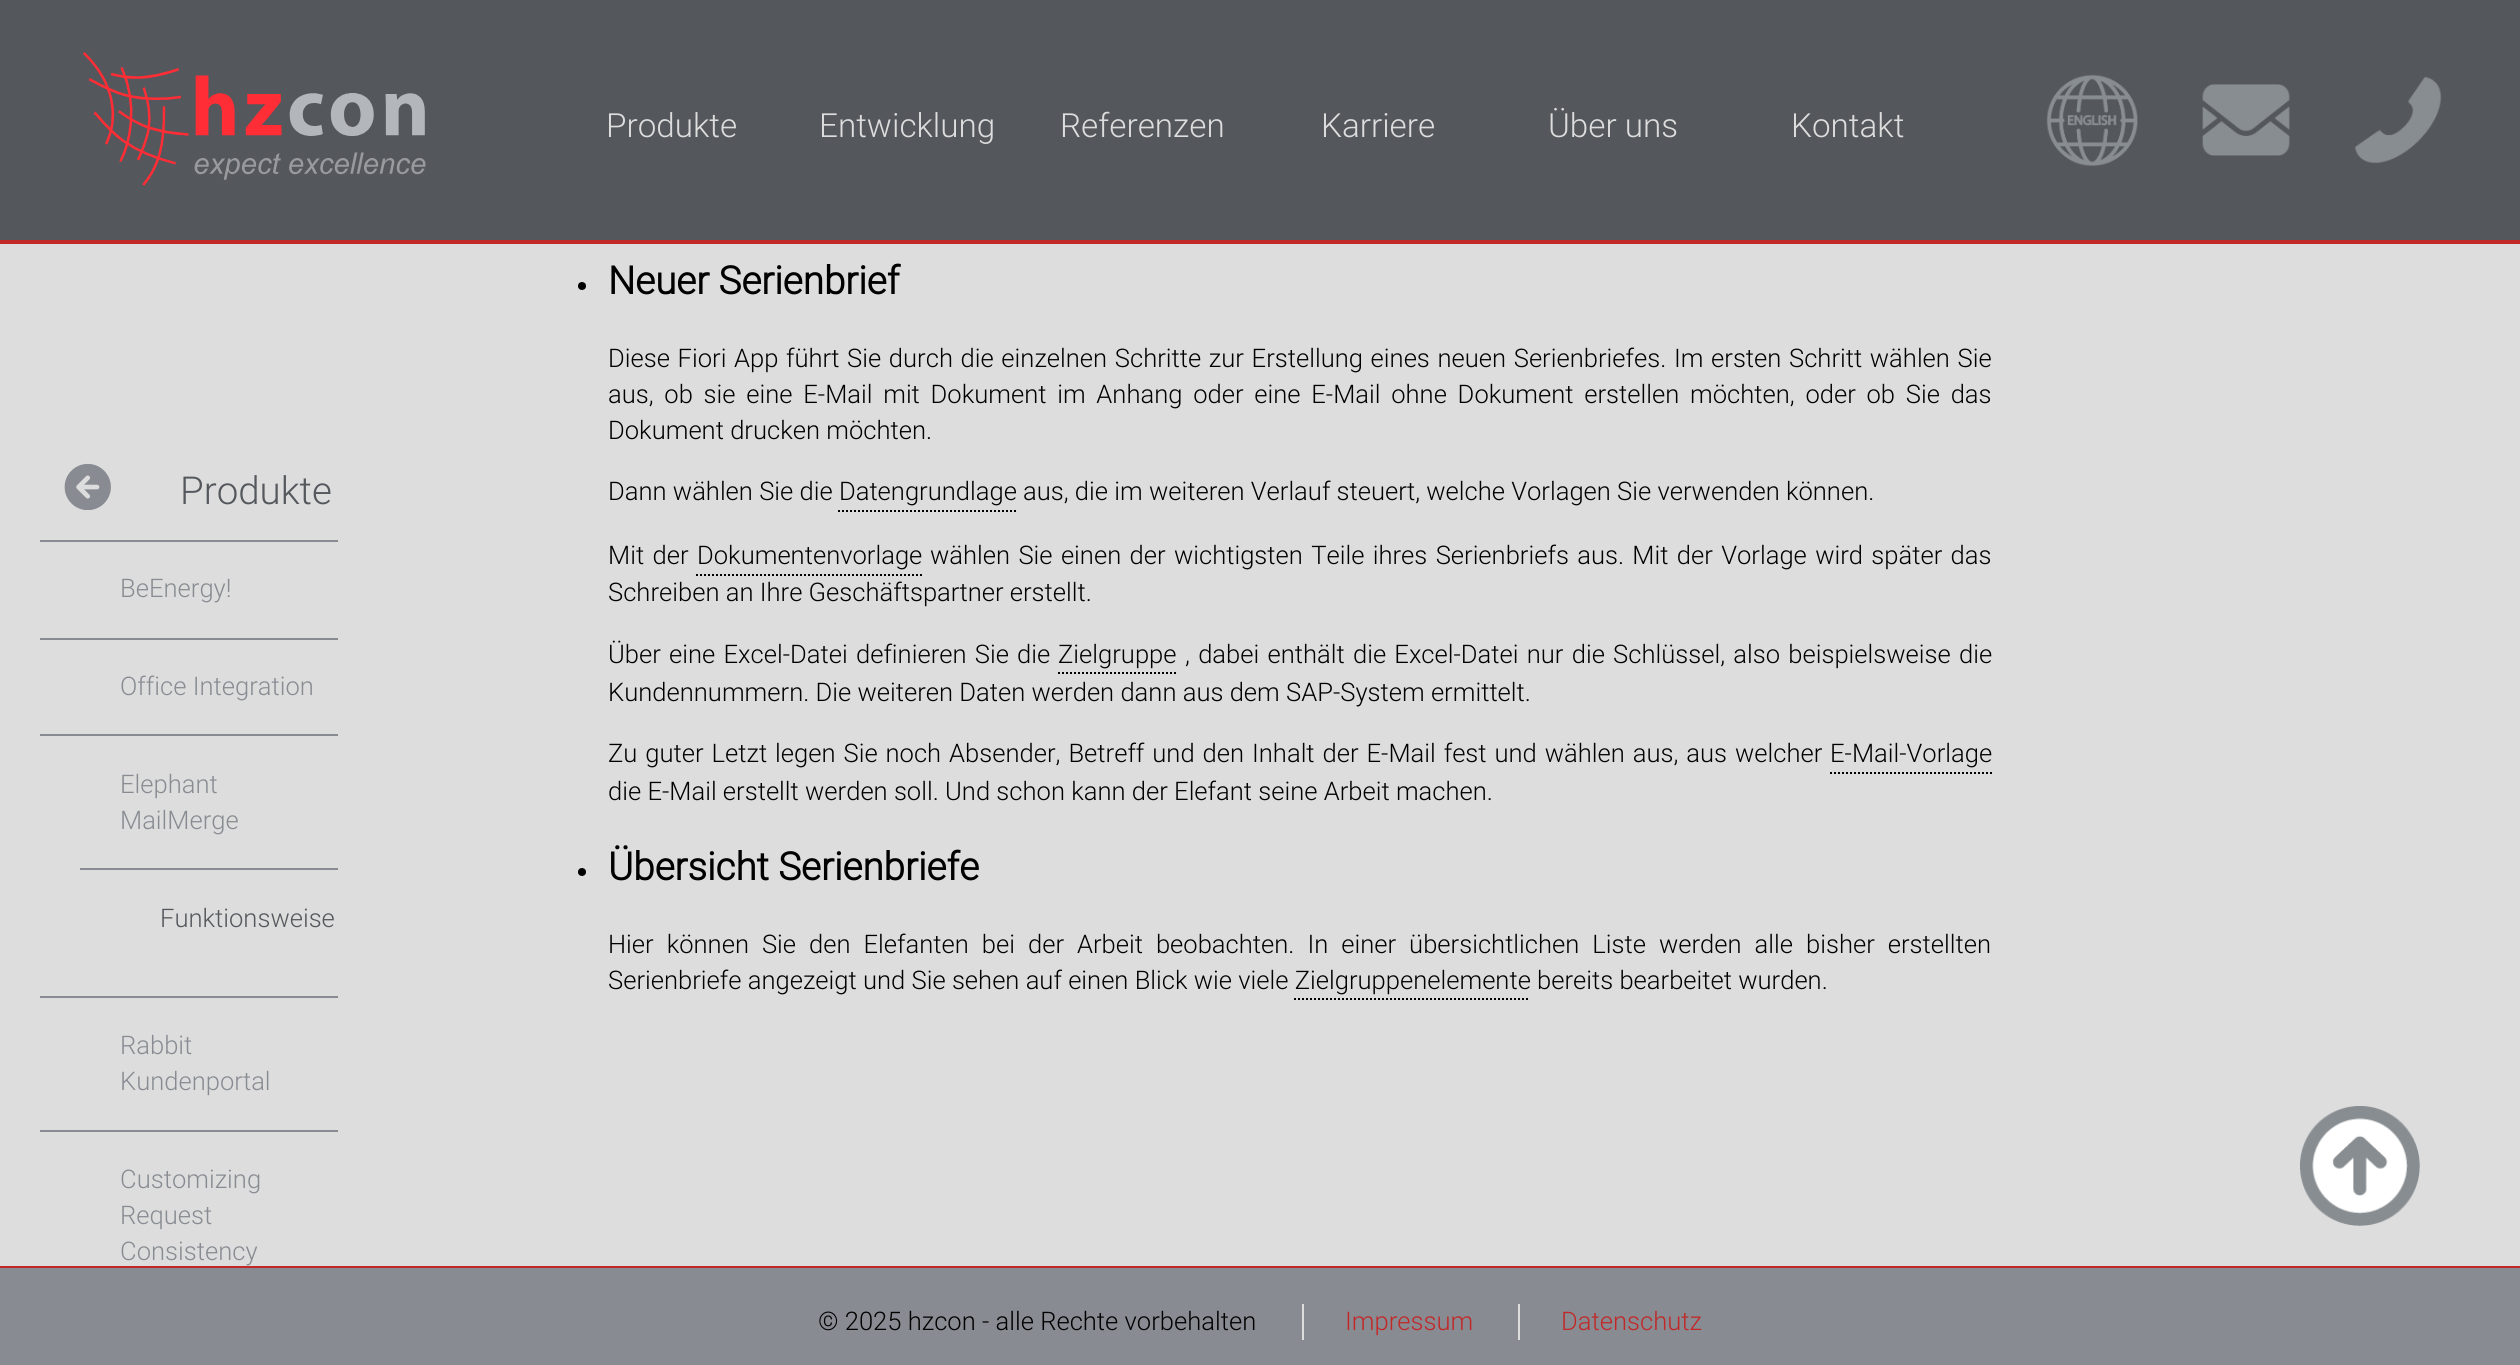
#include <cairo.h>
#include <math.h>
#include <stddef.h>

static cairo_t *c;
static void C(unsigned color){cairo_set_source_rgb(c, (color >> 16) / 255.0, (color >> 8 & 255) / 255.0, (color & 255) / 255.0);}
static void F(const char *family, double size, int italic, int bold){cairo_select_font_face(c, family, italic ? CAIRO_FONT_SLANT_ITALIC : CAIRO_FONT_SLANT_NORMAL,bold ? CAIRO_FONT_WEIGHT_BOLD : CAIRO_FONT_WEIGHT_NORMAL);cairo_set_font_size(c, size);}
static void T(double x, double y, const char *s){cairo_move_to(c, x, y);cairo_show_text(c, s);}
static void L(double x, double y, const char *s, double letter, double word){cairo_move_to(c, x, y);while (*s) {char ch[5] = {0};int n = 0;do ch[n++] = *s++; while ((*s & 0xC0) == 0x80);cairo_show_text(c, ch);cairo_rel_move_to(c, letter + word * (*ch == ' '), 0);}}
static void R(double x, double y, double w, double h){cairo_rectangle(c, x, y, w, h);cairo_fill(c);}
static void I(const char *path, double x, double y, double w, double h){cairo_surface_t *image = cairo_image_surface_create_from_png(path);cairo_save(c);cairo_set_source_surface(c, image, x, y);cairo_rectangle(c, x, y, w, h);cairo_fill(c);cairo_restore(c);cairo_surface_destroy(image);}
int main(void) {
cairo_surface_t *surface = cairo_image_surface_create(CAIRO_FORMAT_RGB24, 2520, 1365);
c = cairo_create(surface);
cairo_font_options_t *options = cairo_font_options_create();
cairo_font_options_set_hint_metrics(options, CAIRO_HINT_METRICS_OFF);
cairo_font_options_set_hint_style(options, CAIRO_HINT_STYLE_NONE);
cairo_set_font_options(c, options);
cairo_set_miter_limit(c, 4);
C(0xdddddd);
cairo_paint(c);
C(0x54575c);
R(0,0,2520,240);
C(0xc12828);
R(0,240,2520,4);
I("1.png",83,52,343,134);
F("Roboto Light",33.25,0,0);
C(0xdddddd);
T(606,137,"Produkte");
T(819,137,"Entwicklung");
T(1060,137,"Referenzen");
T(1321,137,"Karriere");
T(1548,137,"Über uns");
T(1791,137,"Kontakt");
I("2.png",2046,74,92,92);
I("3.png",2202,84,88,72);
I("4.png",2354,76,88,88);
I("5.png",64,463,47,47);
F("Roboto Light",38.5,0,0);
C(0x54575c);
T(180,504,"Produkte");
C(0x888c92);
R(40,540,298,2);
F("Roboto Light",25.6,0,0);
T(120,597,"BeEnergy!");
R(40,638,298,2);
T(120,695,"Office Integration");
R(40,734,298,2);
T(120,793,"Elephant");
T(120,829,"MailMerge");
R(80,868,258,2);
C(0x54575c);
T(160,927,"Funktionsweise");
C(0x888c92);
R(40,996,298,2);
T(120,1054,"Rabbit");
T(120,1090,"Kundenportal");
R(40,1130,298,2);
T(120,1188,"Customizing");
T(120,1224,"Request");
T(120,1260,"Consistency");
C(0x000000);
cairo_new_path(c);
cairo_arc(c,582,286,4,0,2 * M_PI);
cairo_fill(c);
F("Roboto",38.5,0,1);
T(608,294,"Neuer Serienbrief");
F("Roboto Light",25.6,0,0);
L(608,367,"Diese Fiori App führt Sie durch die einzelnen Schritte zur Erstellung eines neuen Serienbriefes. Im ersten Schritt wählen Sie",0,1.4);
L(608,403,"aus, ob sie eine E-Mail mit Dokument im Anhang oder eine E-Mail ohne Dokument erstellen möchten, oder ob Sie das",0,4.5);
T(608,439,"Dokument drucken möchten.");
T(608,500,"Dann wählen Sie die Datengrundlage");
T(1023,500,"aus, die im weiteren Verlauf steuert, welche Vorlagen Sie verwenden können.");
cairo_new_path(c);
cairo_move_to(c,838,511);
cairo_line_to(c,1016,511);
cairo_set_dash(c,(double[]){2,2},2,0);
cairo_stroke(c);
L(608,564,"Mit der",0,2.1);
cairo_new_path(c);
cairo_move_to(c,696,575);
cairo_line_to(c,922,575);
cairo_stroke(c);
T(697,564,"Dokumentenvorlage");
L(930,564,"wählen Sie einen der wichtigsten Teile ihres Serienbriefs aus. Mit der Vorlage wird später das",0,2.1);
T(608,601,"Schreiben an Ihre Geschäftspartner erstellt.");
L(608,663,"Über eine Excel-Datei definieren Sie die",0,2);
cairo_new_path(c);
cairo_move_to(c,1058,673);
cairo_line_to(c,1176,673);
cairo_stroke(c);
T(1058,663,"Zielgruppe");
L(1185,663,", dabei enthält die Excel-Datei nur die Schlüssel, also beispielsweise die",0,2);
T(608,701,"Kundennummern. Die weiteren Daten werden dann aus dem SAP-System ermittelt.");
L(608,762,"Zu guter Letzt legen Sie noch Absender, Betreff und den Inhalt der E-Mail fest und wählen aus, aus welcher",0,1.7);
cairo_new_path(c);
cairo_move_to(c,1830,773);
cairo_line_to(c,1992,773);
cairo_stroke(c);
T(1830,762,"E-Mail-Vorlage");
T(608,800,"die E-Mail erstellt werden soll. Und schon kann der Elefant seine Arbeit machen.");
cairo_new_path(c);
cairo_arc(c,582,872,4,0,2 * M_PI);
cairo_fill(c);
F("Roboto",38.5,0,1);
T(608,880,"Übersicht Serienbriefe");
F("Roboto Light",25.6,0,0);
L(608,953,"Hier können Sie den Elefanten bei der Arbeit beobachten. In einer übersichtlichen Liste werden alle bisher erstellten",0,6.75);
T(608,989,"Serienbriefe angezeigt und Sie sehen auf einen Blick wie viele Zielgruppenelemente");
T(1537,989,"bereits bearbeitet wurden.");
cairo_new_path(c);
cairo_move_to(c,1294,999);
cairo_line_to(c,1530,999);
cairo_stroke(c);
I("6.png",2300,1106,120,120);
C(0x888c92);
R(0,1268,2520,97);
C(0xc12828);
R(0,1266,2520,2);
C(0x000000);
T(818,1330,"© 2025 hzcon - alle Rechte vorbehalten");
C(0xdddddd);
R(1302,1304,2,36);
C(0xc12828);
T(1345,1330,"Impressum");
C(0xdddddd);
R(1518,1304,2,36);
C(0xc12828);
T(1561,1330,"Datenschutz");
cairo_surface_write_to_png(surface, "o.png");
cairo_font_options_destroy(options);
cairo_destroy(c);
cairo_surface_destroy(surface);
return 0;
}
